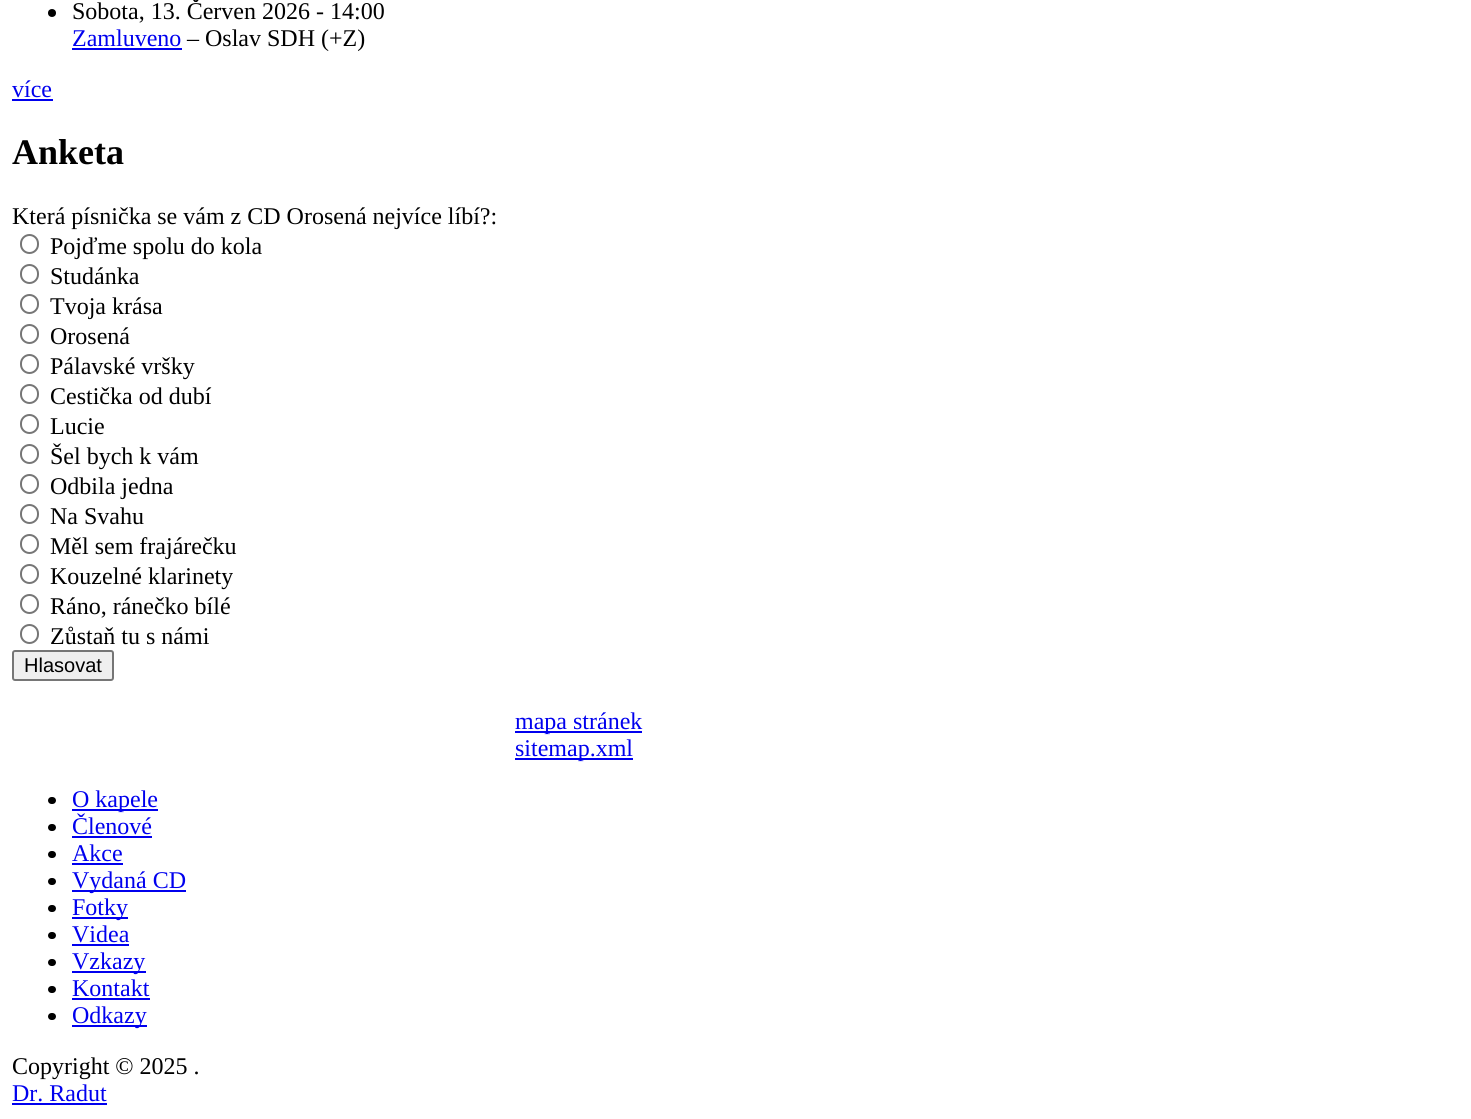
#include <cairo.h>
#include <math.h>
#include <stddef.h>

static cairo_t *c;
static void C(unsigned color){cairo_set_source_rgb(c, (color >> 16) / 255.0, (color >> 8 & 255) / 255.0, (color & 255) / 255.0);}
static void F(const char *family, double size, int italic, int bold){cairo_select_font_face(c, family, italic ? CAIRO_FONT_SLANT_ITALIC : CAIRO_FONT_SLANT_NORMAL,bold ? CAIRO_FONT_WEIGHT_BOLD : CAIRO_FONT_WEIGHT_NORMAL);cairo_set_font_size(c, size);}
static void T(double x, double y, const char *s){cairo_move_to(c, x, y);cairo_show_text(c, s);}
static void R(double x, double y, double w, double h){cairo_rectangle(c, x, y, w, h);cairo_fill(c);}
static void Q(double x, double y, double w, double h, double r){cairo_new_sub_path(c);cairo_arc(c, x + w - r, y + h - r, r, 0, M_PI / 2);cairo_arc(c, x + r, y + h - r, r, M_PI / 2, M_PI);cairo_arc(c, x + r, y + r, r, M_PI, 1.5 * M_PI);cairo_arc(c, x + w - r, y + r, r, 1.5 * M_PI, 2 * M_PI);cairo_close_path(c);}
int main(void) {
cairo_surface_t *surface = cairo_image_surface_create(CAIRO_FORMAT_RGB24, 1471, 1119);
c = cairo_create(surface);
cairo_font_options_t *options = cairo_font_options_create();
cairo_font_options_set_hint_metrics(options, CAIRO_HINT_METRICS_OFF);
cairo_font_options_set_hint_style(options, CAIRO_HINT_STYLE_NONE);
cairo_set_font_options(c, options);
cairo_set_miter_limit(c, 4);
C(0xffffff);
cairo_paint(c);
C(0x000000);
cairo_arc(c,52,13,4,0,2 * M_PI);
cairo_fill(c);
F("Liberation Serif",24,0,0);
T(72,19,"Sobota, 13. Červen 2026 - 14:00");
C(0x0000ee);
T(72,46,"Zamluveno");
R(72,48,110,2);
C(0x000000);
T(187,46,"– Oslav SDH (+Z)");
C(0x0000ee);
T(12,97,"více");
R(12,99,41,2);
F("Liberation Serif",36,0,1);
C(0x000000);
T(12,164,"Anketa");
F("Liberation Serif",24,0,0);
T(12,224,"Která písnička se vám z CD Orosená nejvíce líbí?:");
Q(21,235,17,18,8.5);
C(0x767676);
cairo_stroke(c);
C(0x000000);
T(50,254,"Pojďme spolu do kola");
Q(21,265,17,18,8.5);
C(0x767676);
cairo_stroke(c);
C(0x000000);
T(50,284,"Studánka");
Q(21,295,17,18,8.5);
C(0x767676);
cairo_stroke(c);
C(0x000000);
T(50,314,"Tvoja krása");
Q(21,325,17,18,8.5);
C(0x767676);
cairo_stroke(c);
C(0x000000);
T(50,344,"Orosená");
Q(21,355,17,18,8.5);
C(0x767676);
cairo_stroke(c);
C(0x000000);
T(50,374,"Pálavské vršky");
Q(21,385,17,18,8.5);
C(0x767676);
cairo_stroke(c);
C(0x000000);
T(50,404,"Cestička od dubí");
Q(21,415,17,18,8.5);
C(0x767676);
cairo_stroke(c);
C(0x000000);
T(50,434,"Lucie");
Q(21,445,17,18,8.5);
C(0x767676);
cairo_stroke(c);
C(0x000000);
T(50,464,"Šel bych k vám");
Q(21,475,17,18,8.5);
C(0x767676);
cairo_stroke(c);
C(0x000000);
T(50,494,"Odbila jedna");
Q(21,505,17,18,8.5);
C(0x767676);
cairo_stroke(c);
C(0x000000);
T(50,524,"Na Svahu");
Q(21,535,17,18,8.5);
C(0x767676);
cairo_stroke(c);
C(0x000000);
T(50,554,"Měl sem frajárečku");
Q(21,565,17,18,8.5);
C(0x767676);
cairo_stroke(c);
C(0x000000);
T(50,584,"Kouzelné klarinety");
Q(21,595,17,18,8.5);
C(0x767676);
cairo_stroke(c);
C(0x000000);
T(50,614,"Ráno, ránečko bílé");
Q(21,625,17,18,8.5);
C(0x767676);
cairo_stroke(c);
C(0x000000);
T(50,644,"Zůstaň tu s námi");
C(0xefefef);
Q(13,651,100,29,2);
cairo_fill_preserve(c);
C(0x767676);
cairo_stroke(c);
F("Liberation Sans",20,0,0);
C(0x000000);
T(24,672,"Hlasovat");
C(0x0000ee);
R(515,731,127,2);
F("Liberation Serif",24,0,0);
T(515,729,"mapa stránek");
R(515,758,118,2);
T(515,756,"sitemap.xml");
C(0x000000);
Q(48,797,8,7,3.5);
cairo_fill(c);
C(0x0000ee);
R(72,809,86,2);
T(72,807,"O kapele");
C(0x000000);
Q(48,824,8,7,3.5);
cairo_fill(c);
C(0x0000ee);
T(72,834,"Členové");
R(72,836,80,2);
C(0x000000);
Q(48,851,8,7,3.5);
cairo_fill(c);
C(0x0000ee);
T(72,861,"Akce");
R(72,863,51,2);
C(0x000000);
Q(48,878,8,7,3.5);
cairo_fill(c);
C(0x0000ee);
R(72,890,114,2);
T(72,888,"Vydaná CD");
C(0x000000);
Q(48,905,8,7,3.5);
cairo_fill(c);
C(0x0000ee);
R(72,917,56,2);
T(72,915,"Fotky");
C(0x000000);
Q(48,932,8,7,3.5);
cairo_fill(c);
C(0x0000ee);
T(72,942,"Videa");
R(72,944,57,2);
C(0x000000);
Q(48,959,8,7,3.5);
cairo_fill(c);
C(0x0000ee);
R(72,971,74,2);
T(72,969,"Vzkazy");
C(0x000000);
Q(48,986,8,7,3.5);
cairo_fill(c);
C(0x0000ee);
T(72,996,"Kontakt");
R(72,998,78,2);
C(0x000000);
Q(48,1013,8,7,3.5);
cairo_fill(c);
C(0x0000ee);
R(72,1025,75,2);
T(72,1023,"Odkazy");
C(0x000000);
T(12,1074,"Copyright © 2025 .");
C(0x0000ee);
T(12,1101,"Dr. Radut");
R(12,1103,95,2);
cairo_surface_write_to_png(surface, "o.png");
cairo_font_options_destroy(options);
cairo_destroy(c);
cairo_surface_destroy(surface);
return 0;
}
